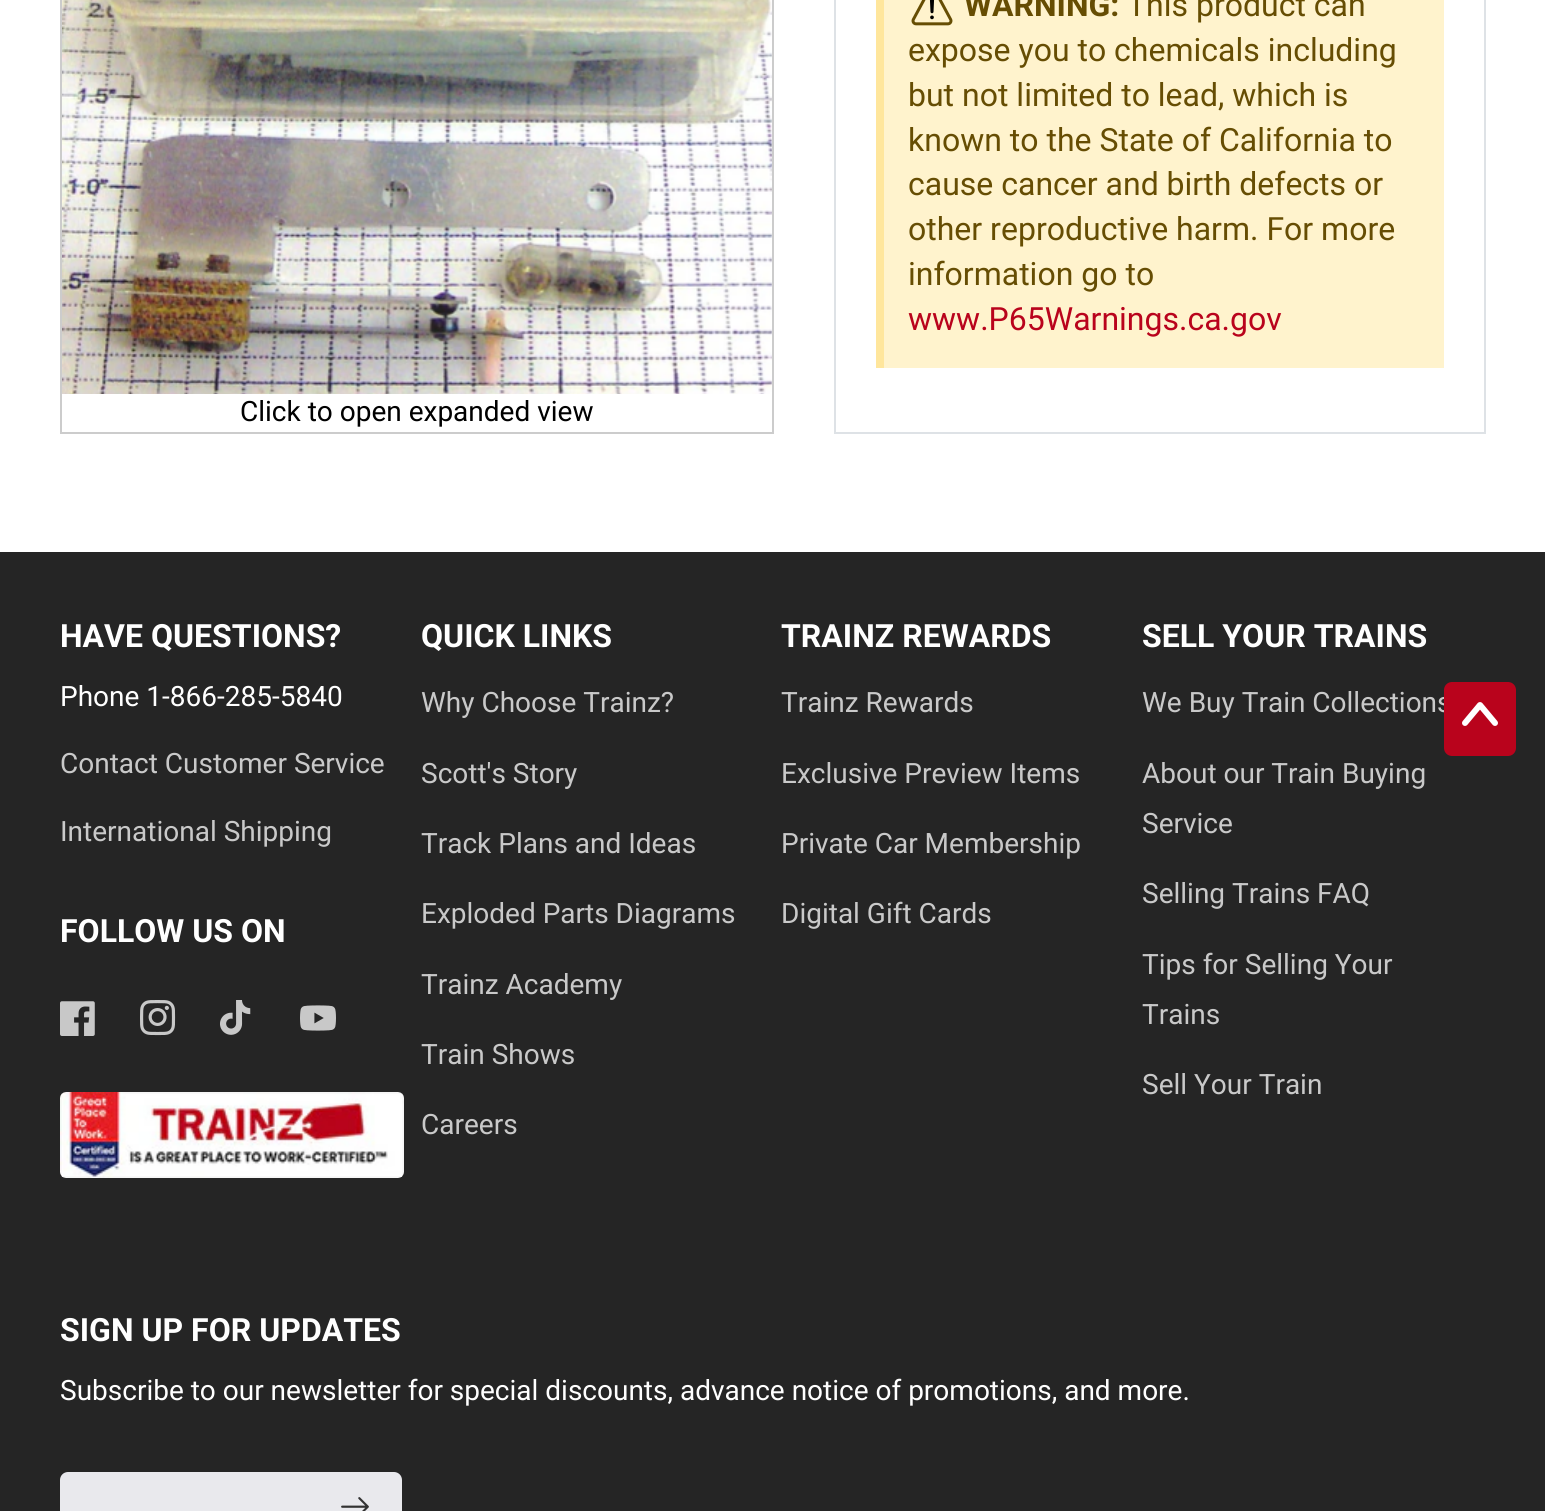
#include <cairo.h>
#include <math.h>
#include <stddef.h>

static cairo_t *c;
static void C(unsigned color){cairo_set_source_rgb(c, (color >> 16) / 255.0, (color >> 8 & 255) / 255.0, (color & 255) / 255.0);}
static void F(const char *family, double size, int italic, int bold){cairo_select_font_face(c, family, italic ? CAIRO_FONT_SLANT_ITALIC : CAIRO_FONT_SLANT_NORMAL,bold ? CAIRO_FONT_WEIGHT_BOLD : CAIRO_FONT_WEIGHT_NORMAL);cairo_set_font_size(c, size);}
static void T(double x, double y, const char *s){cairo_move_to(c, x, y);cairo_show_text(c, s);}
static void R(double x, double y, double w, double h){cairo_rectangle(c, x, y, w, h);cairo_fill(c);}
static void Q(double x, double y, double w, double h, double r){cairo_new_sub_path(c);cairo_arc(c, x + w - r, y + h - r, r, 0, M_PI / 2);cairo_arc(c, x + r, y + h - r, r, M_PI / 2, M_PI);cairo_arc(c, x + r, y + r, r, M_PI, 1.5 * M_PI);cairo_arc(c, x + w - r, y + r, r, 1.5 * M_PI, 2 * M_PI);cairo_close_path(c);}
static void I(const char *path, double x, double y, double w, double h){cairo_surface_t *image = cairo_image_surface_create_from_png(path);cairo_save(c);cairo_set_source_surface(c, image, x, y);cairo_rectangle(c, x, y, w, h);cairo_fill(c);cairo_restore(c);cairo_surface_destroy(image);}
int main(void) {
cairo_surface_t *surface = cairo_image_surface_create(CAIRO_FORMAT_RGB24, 1545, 1511);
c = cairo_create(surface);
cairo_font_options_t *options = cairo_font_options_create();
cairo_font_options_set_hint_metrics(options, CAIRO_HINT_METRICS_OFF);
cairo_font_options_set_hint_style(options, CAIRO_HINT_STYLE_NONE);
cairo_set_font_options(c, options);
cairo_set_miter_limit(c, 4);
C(0xffffff);
cairo_paint(c);
C(0xdee2e6);
R(1484,0,2,434);
R(834,432,652,2);
R(834,0,2,434);
C(0xfff3cd);
R(884,0,560,368);
C(0xffe69c);
R(876,0,8,368);
I("1.png",911,0,42,26);
F("Roboto",32,0,1);
C(0x664d03);
T(964,16,"WARNING:");
F("Roboto",32,0,0);
T(1127,16,"This product can");
T(908,61,"expose you to chemicals including");
T(908,106,"but not limited to lead, which is");
T(908,151,"known to the State of California to");
T(908,195,"cause cancer and birth defects or");
T(908,240,"other reproductive harm. For more");
T(908,285,"information go to");
C(0xb9031c);
T(908,330,"www.P65Warnings.ca.gov");
cairo_rectangle(c,61,-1,712,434);
C(0xcccccc);
cairo_stroke(c);
I("2.png",62,0,710,394);
F("Roboto",28,0,0);
C(0x000000);
T(240,421,"Click to open expanded view");
C(0x252525);
R(0,552,1545,959);
F("Roboto",32,0,1);
C(0xffffff);
T(60,647,"HAVE QUESTIONS?");
F("Roboto",28,0,0);
T(60,706,"Phone 1-866-285-5840");
C(0xc9c9c9);
T(60,773,"Contact Customer Service");
T(60,841,"International Shipping");
F("Roboto",32,0,1);
C(0xffffff);
T(60,942,"FOLLOW US ON");
I("3.png",60,1001,35,35);
I("4.png",140,1000,36,36);
I("5.png",220,1000,31,35);
I("6.png",300,1005,36,26);
I("7.png",60,1092,344,86);
T(421,647,"QUICK LINKS");
F("Roboto",28,0,0);
C(0xc9c9c9);
T(421,712,"Why Choose Trainz?");
T(421,783,"Scott's Story");
T(421,853,"Track Plans and Ideas");
T(421,923,"Exploded Parts Diagrams");
T(421,994,"Trainz Academy");
T(421,1064,"Train Shows");
T(421,1134,"Careers");
F("Roboto",32,0,1);
C(0xffffff);
T(781,647,"TRAINZ REWARDS");
F("Roboto",28,0,0);
C(0xc9c9c9);
T(781,712,"Trainz Rewards");
T(781,783,"Exclusive Preview Items");
T(781,853,"Private Car Membership");
T(781,923,"Digital Gift Cards");
F("Roboto",32,0,1);
C(0xffffff);
T(1142,647,"SELL YOUR TRAINS");
F("Roboto",28,0,0);
C(0xc9c9c9);
T(1142,712,"We Buy Train Collections");
T(1142,783,"About our Train Buying");
T(1142,833,"Service");
T(1142,903,"Selling Trains FAQ");
T(1142,974,"Tips for Selling Your");
T(1142,1024,"Trains");
T(1142,1094,"Sell Your Train");
F("Roboto",32,0,1);
C(0xffffff);
T(60,1341,"SIGN UP FOR UPDATES");
F("Roboto",28,0,0);
T(60,1400,"Subscribe to our newsletter for special discounts, advance notice of promotions, and more.");
C(0xe9e9ed);
Q(61,1473,340,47,7);
cairo_fill_preserve(c);
cairo_stroke(c);
I("8.png",341,1497,28,14);
C(0xb9031c);
Q(1444,682,72,74,8);
cairo_fill(c);
I("9.png",1462,702,36,24);
cairo_surface_write_to_png(surface, "o.png");
cairo_font_options_destroy(options);
cairo_destroy(c);
cairo_surface_destroy(surface);
return 0;
}
